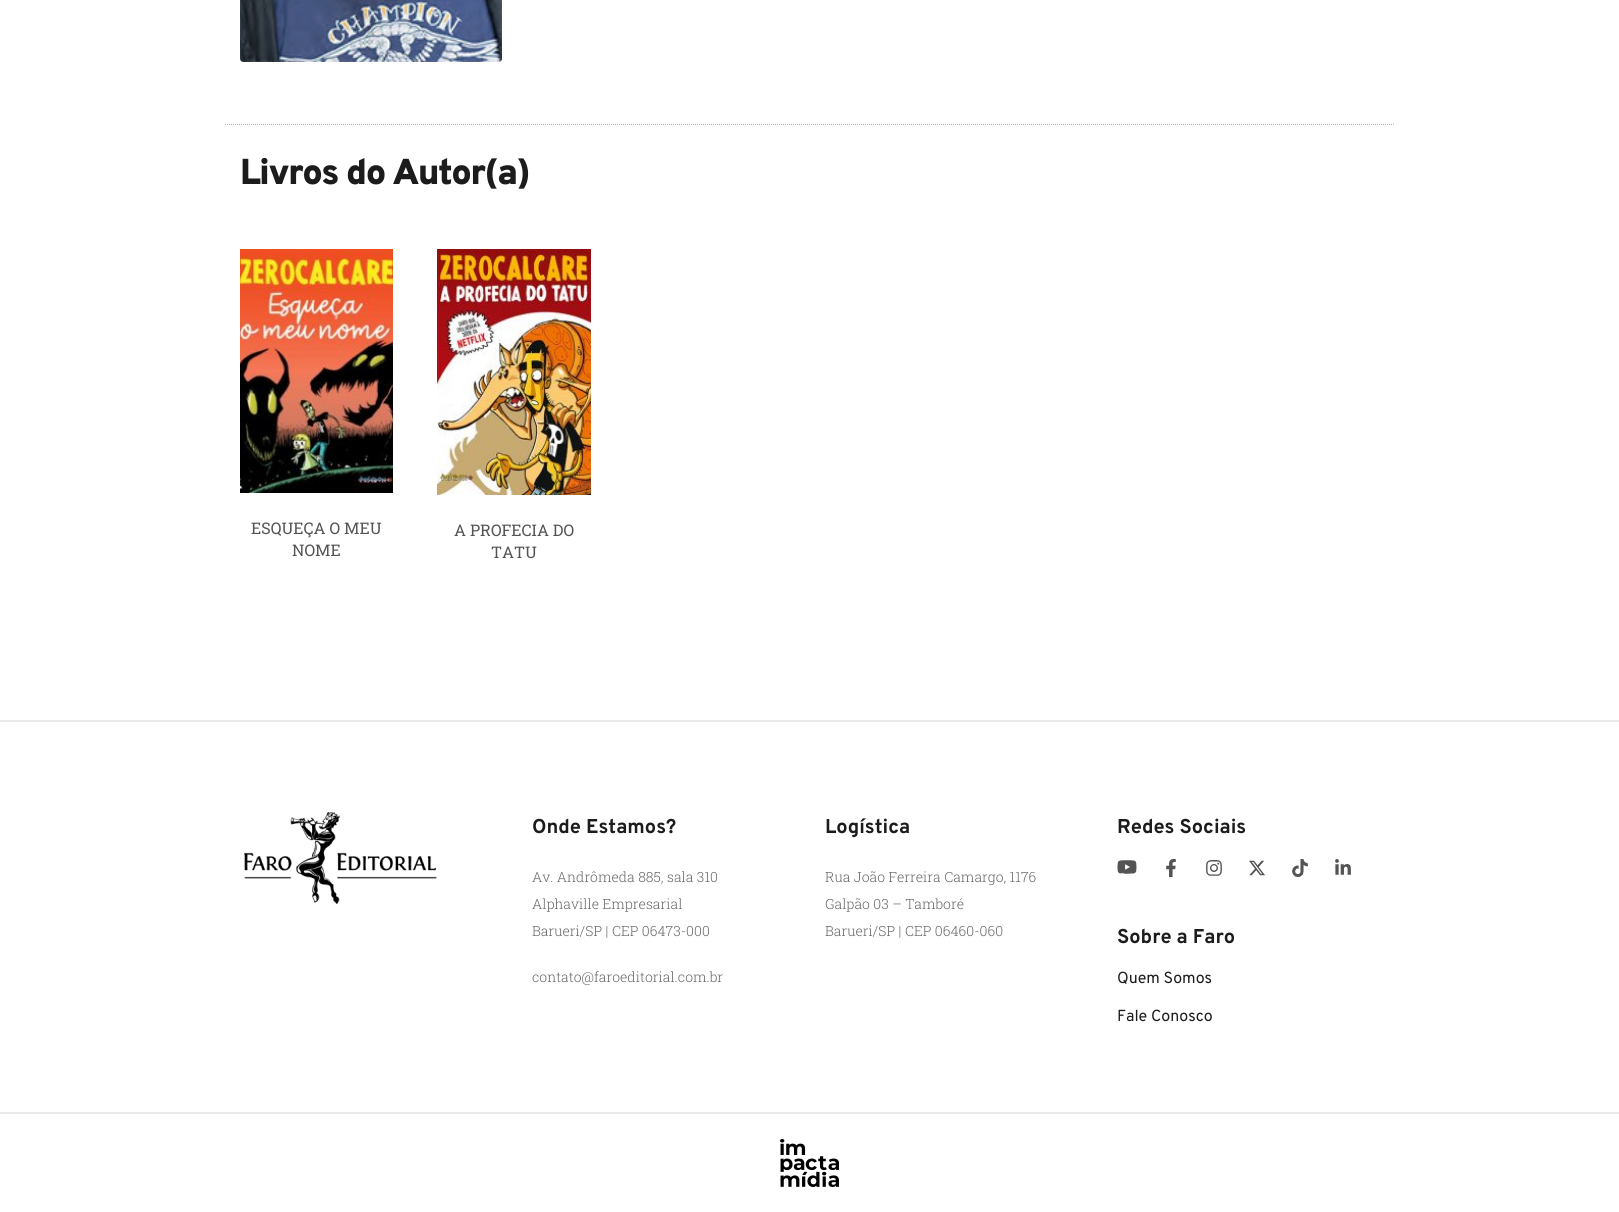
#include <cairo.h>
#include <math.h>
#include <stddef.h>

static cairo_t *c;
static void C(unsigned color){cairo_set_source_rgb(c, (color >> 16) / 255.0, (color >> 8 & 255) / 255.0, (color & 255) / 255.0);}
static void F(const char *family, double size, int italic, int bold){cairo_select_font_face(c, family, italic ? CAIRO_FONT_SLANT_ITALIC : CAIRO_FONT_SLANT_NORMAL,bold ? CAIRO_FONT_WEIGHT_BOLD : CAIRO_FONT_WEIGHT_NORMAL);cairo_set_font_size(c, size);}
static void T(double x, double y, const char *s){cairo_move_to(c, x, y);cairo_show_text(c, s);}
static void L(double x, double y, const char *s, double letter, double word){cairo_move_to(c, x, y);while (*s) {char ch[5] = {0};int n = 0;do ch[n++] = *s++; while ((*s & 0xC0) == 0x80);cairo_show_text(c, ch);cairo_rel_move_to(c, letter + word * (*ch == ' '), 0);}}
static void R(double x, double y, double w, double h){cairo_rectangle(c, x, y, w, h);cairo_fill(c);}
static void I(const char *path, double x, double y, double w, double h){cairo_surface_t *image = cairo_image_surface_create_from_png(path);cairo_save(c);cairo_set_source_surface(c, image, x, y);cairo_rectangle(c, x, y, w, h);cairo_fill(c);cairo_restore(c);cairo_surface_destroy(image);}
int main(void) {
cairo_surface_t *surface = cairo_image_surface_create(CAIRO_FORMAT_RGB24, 1619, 1212);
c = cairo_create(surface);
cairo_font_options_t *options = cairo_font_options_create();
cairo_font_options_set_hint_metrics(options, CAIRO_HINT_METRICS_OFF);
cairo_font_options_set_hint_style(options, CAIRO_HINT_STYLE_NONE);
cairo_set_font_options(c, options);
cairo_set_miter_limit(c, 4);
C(0xffffff);
cairo_paint(c);
I("1.png",240,0,262,62);
cairo_new_path(c);
cairo_move_to(c,225,124.5);
cairo_line_to(c,1395,124.5);
C(0xafafaf);
cairo_set_line_width(c,1);
cairo_set_dash(c,(double[]){1,1},2,0);
cairo_stroke(c);
F("Overpass Black",36,0,0);
C(0x1c1c1c);
L(240,184,"Livros do Autor(a)",-1.5,0);
I("2.png",240,249,153,244);
F("Roboto Slab",16,0,0);
C(0x545454);
T(251,534,"ESQUEÇA O MEU");
T(292,556,"NOME");
I("3.png",437,249,154,246);
T(454,536,"A PROFECIA DO");
T(491,558,"TATU");
C(0xebebeb);
R(0,720,1619,2);
I("4.png",244,812,193,92);
F("Overpass",20,0,1);
C(0x1c1c1c);
T(532,833,"Onde Estamos?");
F("Roboto Slab Light",14,0,0);
C(0x666666);
T(532,882,"Av. Andrômeda 885, sala 310");
T(532,909,"Alphaville Empresarial");
T(532,936,"Barueri/SP | CEP 06473-000");
T(532,982,"contato@faroeditorial.com.br");
F("Overpass",20,0,1);
C(0x1c1c1c);
T(825,833,"Logística");
F("Roboto Slab Light",14,0,0);
C(0x666666);
T(825,882,"Rua João Ferreira Camargo, 1176");
T(825,909,"Galpão 03 – Tamboré");
T(825,936,"Barueri/SP | CEP 06460-060");
F("Overpass",20,0,1);
C(0x1c1c1c);
T(1117,833,"Redes Sociais");
I("5.png",1117,860,20,14);
I("6.png",1166,859,10,18);
I("7.png",1206,860,16,16);
I("8.png",1249,860,16,16);
I("9.png",1292,859,16,18);
I("10.png",1335,859,16,16);
T(1117,943,"Sobre a Faro");
F("Overpass",16,0,0);
T(1117,983,"Quem Somos");
T(1117,1021,"Fale Conosco");
C(0xebebeb);
R(0,1112,1619,2);
I("11.png",780,1139,59,48);
cairo_surface_write_to_png(surface, "o.png");
cairo_font_options_destroy(options);
cairo_destroy(c);
cairo_surface_destroy(surface);
return 0;
}
